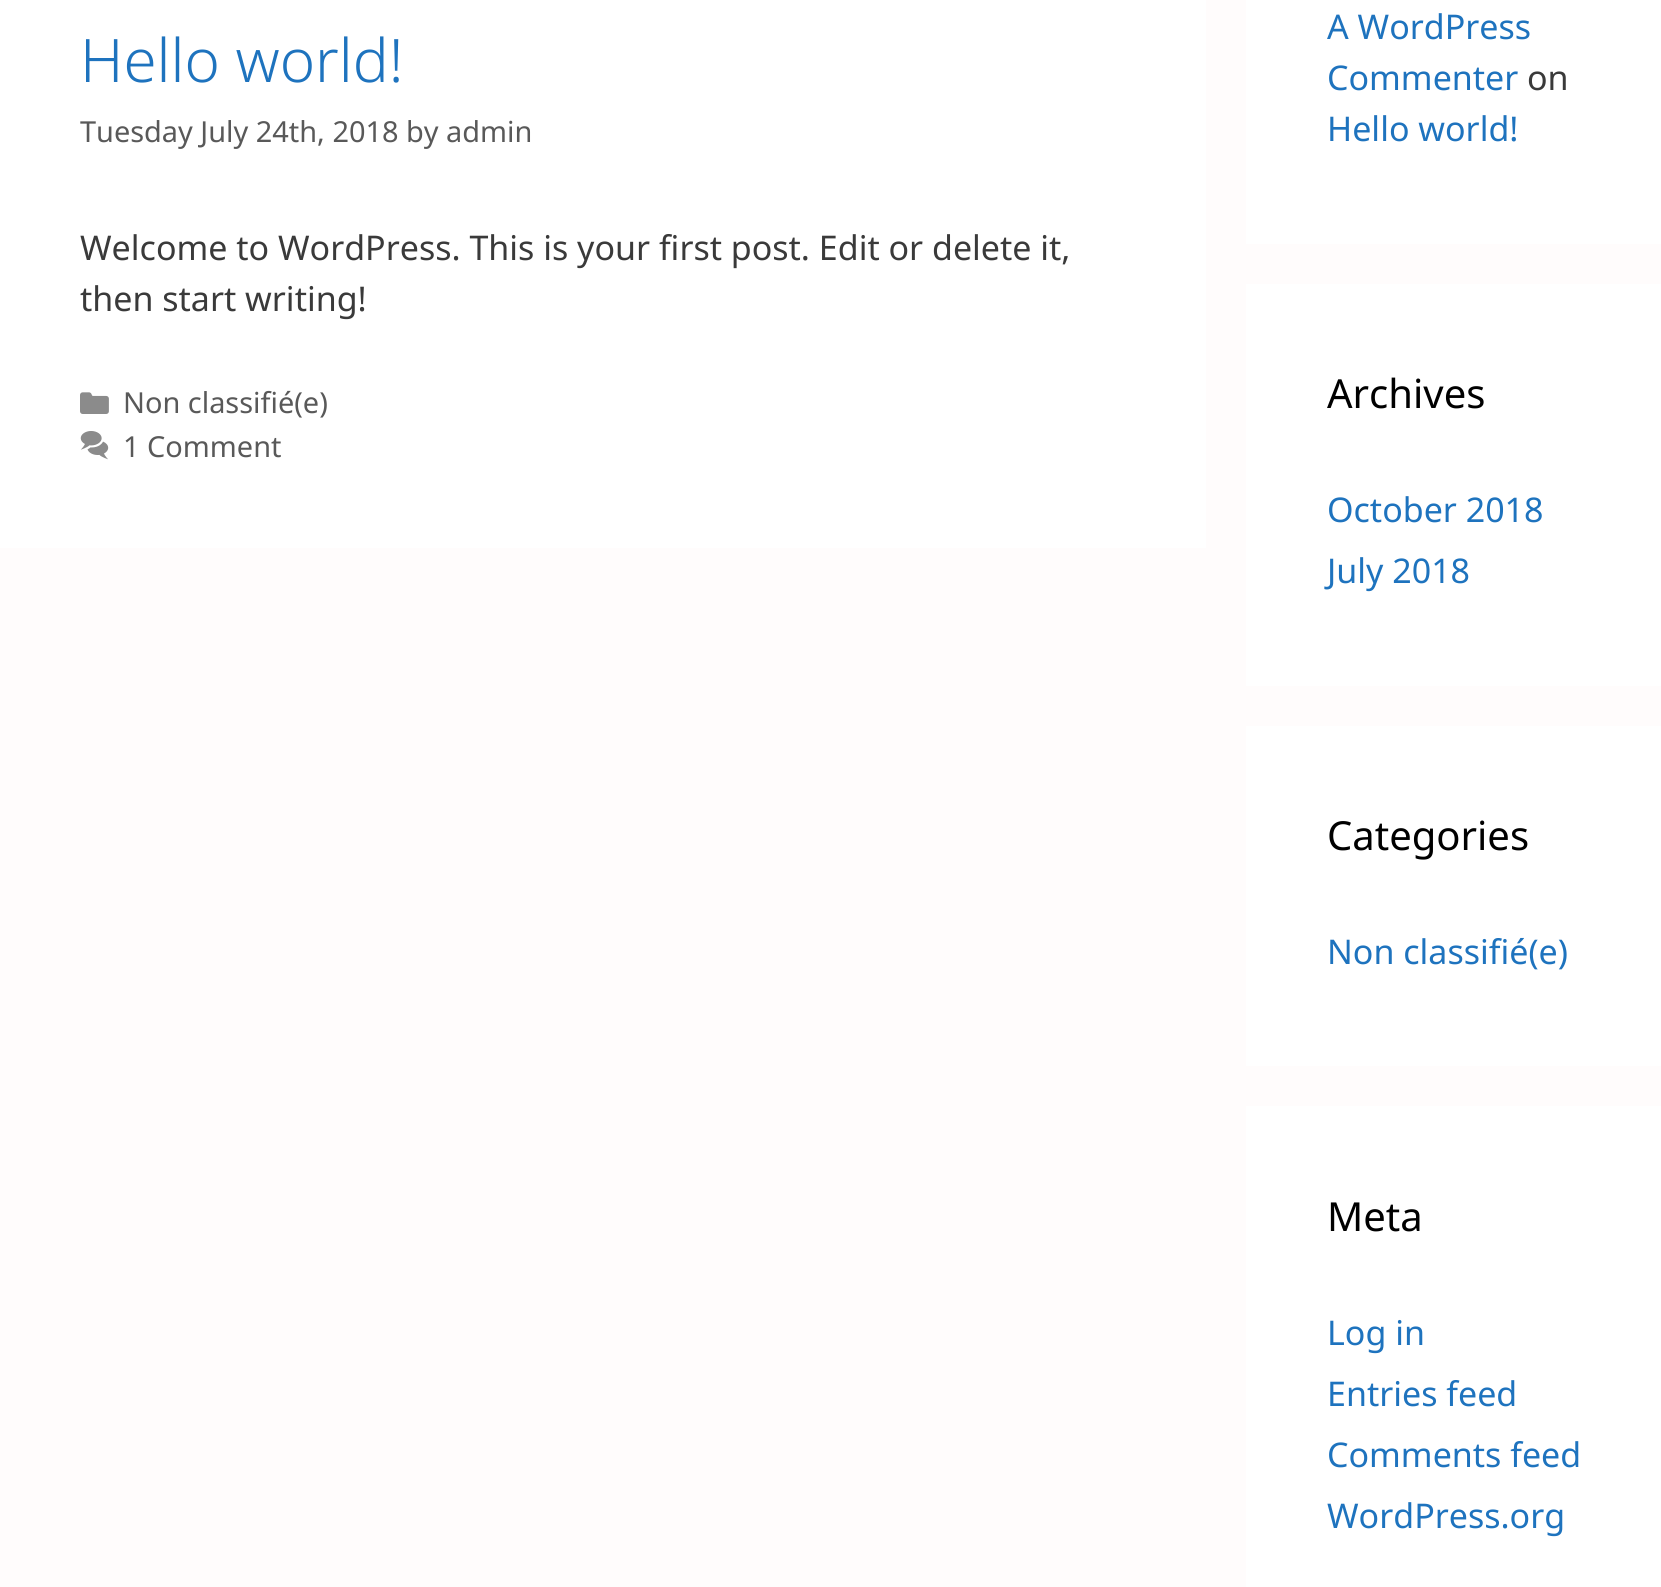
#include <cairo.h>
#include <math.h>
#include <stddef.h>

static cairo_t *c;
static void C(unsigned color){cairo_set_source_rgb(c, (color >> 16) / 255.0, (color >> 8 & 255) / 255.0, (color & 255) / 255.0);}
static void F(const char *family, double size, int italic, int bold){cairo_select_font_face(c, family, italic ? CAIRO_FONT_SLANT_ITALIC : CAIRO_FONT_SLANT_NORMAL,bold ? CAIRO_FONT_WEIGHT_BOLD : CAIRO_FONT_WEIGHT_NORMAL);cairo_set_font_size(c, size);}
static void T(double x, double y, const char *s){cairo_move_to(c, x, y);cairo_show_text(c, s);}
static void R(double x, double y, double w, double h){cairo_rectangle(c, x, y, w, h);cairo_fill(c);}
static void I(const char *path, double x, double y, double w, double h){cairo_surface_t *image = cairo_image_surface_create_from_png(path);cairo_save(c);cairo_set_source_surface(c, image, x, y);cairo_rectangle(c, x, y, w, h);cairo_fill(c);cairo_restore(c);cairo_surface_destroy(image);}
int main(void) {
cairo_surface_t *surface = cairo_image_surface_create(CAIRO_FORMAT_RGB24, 1661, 1587);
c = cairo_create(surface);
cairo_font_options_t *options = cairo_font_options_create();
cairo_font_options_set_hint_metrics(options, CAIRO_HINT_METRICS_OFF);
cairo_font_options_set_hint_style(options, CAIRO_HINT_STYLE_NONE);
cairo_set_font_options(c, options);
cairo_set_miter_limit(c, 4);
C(0xfffcfc);
cairo_paint(c);
C(0xffffff);
R(0,0,1206,548);
F("Noto Sans Light",60,0,0);
C(0x1e73be);
T(80,82,"Hello world!");
F("Noto Sans",28.9,0,0);
C(0x595959);
T(80,142,"Tuesday July 24th, 2018 by admin");
F("Noto Sans",34,0,0);
C(0x3a3a3a);
T(80,260,"Welcome to WordPress. This is your first post. Edit or delete it,");
T(80,311,"then start writing!");
I("1.png",80,392,29,22);
F("Noto Sans",28.9,0,0);
C(0x595959);
T(123,413,"Non classifié(e)");
I("2.png",80,431,29,29);
T(123,457,"1 Comment");
C(0xffffff);
R(1246,0,415,244);
F("Noto Sans",34,0,0);
C(0x1e73be);
T(1327,39,"A WordPress");
T(1327,90,"Commenter");
C(0x3a3a3a);
T(1527,90,"on");
C(0x1e73be);
T(1327,141,"Hello world!");
C(0xffffff);
R(1246,284,415,402);
F("Noto Sans",40,0,0);
C(0x000000);
T(1327,408,"Archives");
F("Noto Sans",34,0,0);
C(0x1e73be);
T(1327,522,"October 2018");
T(1327,583,"July 2018");
C(0xffffff);
R(1246,726,415,340);
F("Noto Sans",40,0,0);
C(0x000000);
T(1327,850,"Categories");
F("Noto Sans",34,0,0);
C(0x1e73be);
T(1327,964,"Non classifié(e)");
C(0xffffff);
R(1246,1106,415,481);
F("Noto Sans",40,0,0);
C(0x000000);
T(1327,1231,"Meta");
F("Noto Sans",34,0,0);
C(0x1e73be);
T(1327,1345,"Log in");
T(1327,1406,"Entries feed");
T(1327,1467,"Comments feed");
T(1327,1528,"WordPress.org");
cairo_surface_write_to_png(surface, "o.png");
cairo_font_options_destroy(options);
cairo_destroy(c);
cairo_surface_destroy(surface);
return 0;
}
